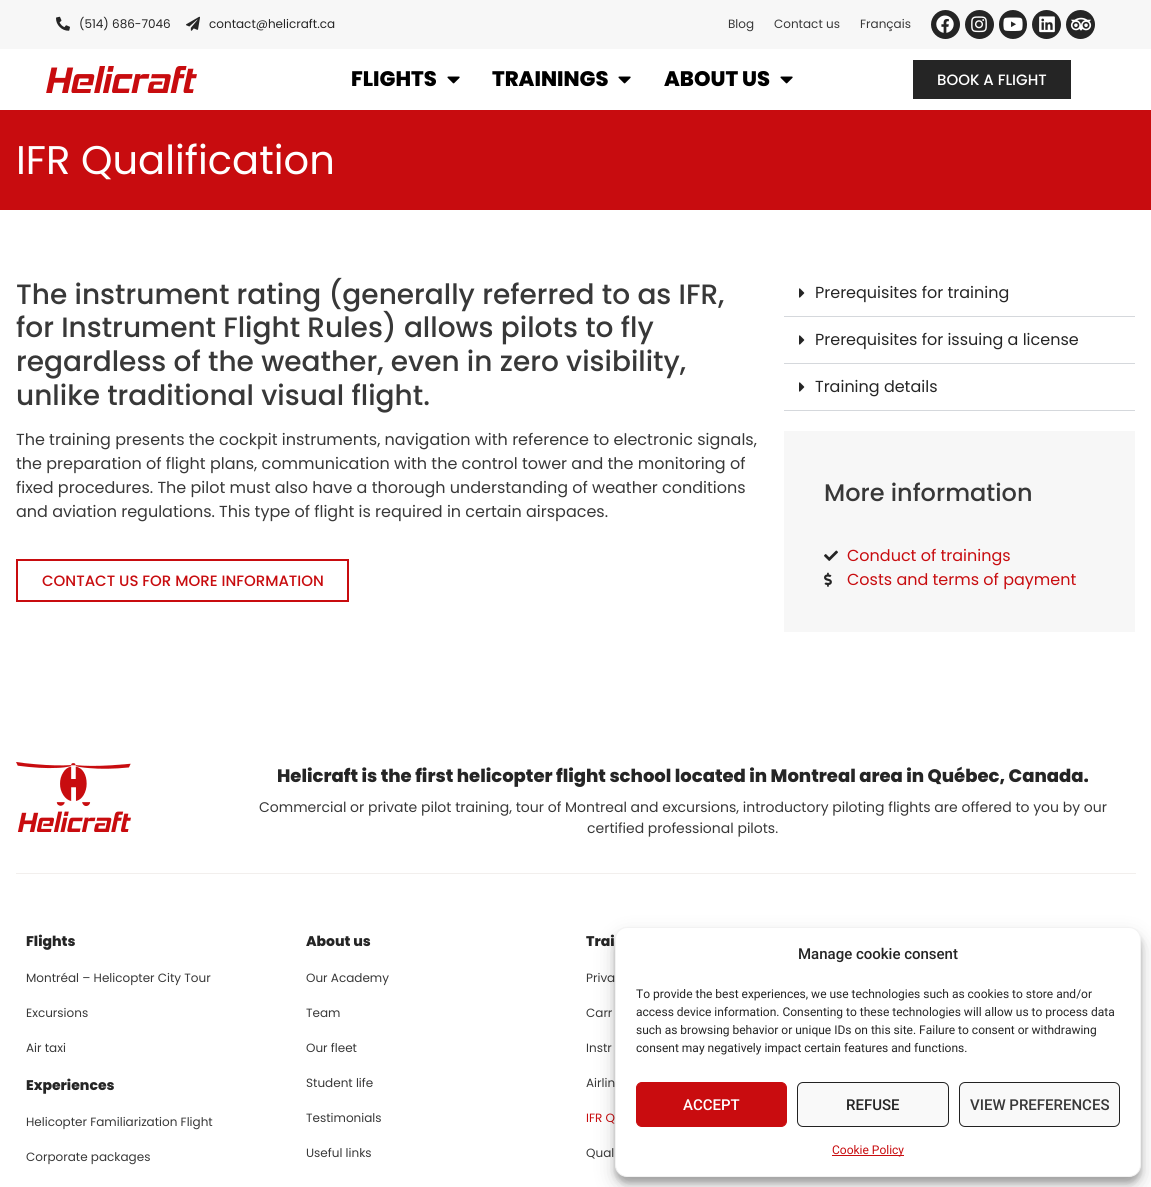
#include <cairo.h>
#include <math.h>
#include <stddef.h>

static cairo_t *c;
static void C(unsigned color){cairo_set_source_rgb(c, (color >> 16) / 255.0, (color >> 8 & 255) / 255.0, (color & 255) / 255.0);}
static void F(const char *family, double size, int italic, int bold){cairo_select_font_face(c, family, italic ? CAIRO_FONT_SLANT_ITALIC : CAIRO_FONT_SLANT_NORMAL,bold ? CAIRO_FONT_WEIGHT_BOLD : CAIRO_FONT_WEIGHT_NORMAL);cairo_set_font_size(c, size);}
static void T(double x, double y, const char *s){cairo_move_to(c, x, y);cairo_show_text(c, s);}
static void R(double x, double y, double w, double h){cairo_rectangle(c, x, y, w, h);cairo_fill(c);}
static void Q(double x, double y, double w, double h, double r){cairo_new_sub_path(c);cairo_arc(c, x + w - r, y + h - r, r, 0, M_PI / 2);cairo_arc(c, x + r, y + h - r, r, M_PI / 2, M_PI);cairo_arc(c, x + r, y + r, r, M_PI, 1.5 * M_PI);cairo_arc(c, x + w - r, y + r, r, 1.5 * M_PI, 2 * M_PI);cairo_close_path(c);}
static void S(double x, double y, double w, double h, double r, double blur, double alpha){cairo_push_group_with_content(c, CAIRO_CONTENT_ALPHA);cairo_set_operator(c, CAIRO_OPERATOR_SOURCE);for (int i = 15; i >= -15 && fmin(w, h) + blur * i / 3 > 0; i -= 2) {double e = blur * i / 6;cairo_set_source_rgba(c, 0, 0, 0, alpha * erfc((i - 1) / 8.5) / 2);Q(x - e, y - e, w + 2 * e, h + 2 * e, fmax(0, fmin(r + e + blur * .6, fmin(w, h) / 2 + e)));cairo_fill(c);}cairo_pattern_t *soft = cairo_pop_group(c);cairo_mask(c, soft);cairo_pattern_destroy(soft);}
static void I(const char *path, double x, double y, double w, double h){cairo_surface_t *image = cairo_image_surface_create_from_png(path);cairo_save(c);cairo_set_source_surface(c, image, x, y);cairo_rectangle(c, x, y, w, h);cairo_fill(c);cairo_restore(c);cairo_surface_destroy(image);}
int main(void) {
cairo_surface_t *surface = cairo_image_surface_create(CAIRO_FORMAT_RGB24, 1151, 1187);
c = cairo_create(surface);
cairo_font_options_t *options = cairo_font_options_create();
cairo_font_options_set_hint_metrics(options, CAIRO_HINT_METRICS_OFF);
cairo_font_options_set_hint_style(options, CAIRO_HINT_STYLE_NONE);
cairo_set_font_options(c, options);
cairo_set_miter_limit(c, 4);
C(0xffffff);
cairo_paint(c);
C(0xf7f7f7);
R(0,0,1151,49);
I("1.png",56,16,14,15);
F("Poppins",12,0,0);
C(0x252525);
T(79,28,"(514) 686-7046");
I("2.png",186,16,14,15);
T(209,28,"contact@helicraft.ca");
C(0x383838);
T(728,28,"Blog");
T(774,28,"Contact us");
T(860,28,"Français");
C(0x252525);
cairo_new_path(c);
cairo_arc(c,945.5,24.5,14.5,0,2 * M_PI);
cairo_fill(c);
I("3.png",936,15,18,18);
cairo_arc(c,979.5,24.5,14.5,0,2 * M_PI);
cairo_fill(c);
I("4.png",971,16,16,17);
Q(999,10,28,29,14);
cairo_fill(c);
I("5.png",1003,17,20,14);
cairo_arc(c,1046.5,24.5,14.5,0,2 * M_PI);
cairo_fill(c);
I("6.png",1039,16,16,17);
cairo_arc(c,1080.5,24.5,14.5,0,2 * M_PI);
cairo_fill(c);
I("7.png",1070,17,22,14);
I("8.png",46,66,151,27);
F("Poppins ExtraBold",21,0,0);
C(0x000000);
T(351,86,"FLIGHTS");
I("9.png",447,76,13,8);
T(492,86,"TRAININGS");
I("9.png",618,76,13,8);
T(664,86,"ABOUT US");
I("9.png",780,76,13,8);
C(0x252525);
R(913,60,158,39);
F("Poppins Medium",15,0,0);
C(0xffffff);
T(937,85,"BOOK A FLIGHT");
C(0xc80c0f);
R(0,110,1151,100);
F("Poppins",40,0,0);
C(0xffffff);
T(16,174,"IFR Qualification");
F("Poppins Medium",28,0,0);
C(0x383838);
T(16,304,"The instrument rating (generally referred to as IFR,");
T(16,337,"for Instrument Flight Rules) allows pilots to fly");
T(16,371,"regardless of the weather, even in zero visibility,");
T(16,405,"unlike traditional visual flight.");
F("Poppins",16,0,0);
T(16,445,"The training presents the cockpit instruments, navigation with reference to electronic signals,");
T(16,469,"the preparation of flight plans, communication with the control tower and the monitoring of");
T(16,493,"fixed procedures. The pilot must also have a thorough understanding of weather conditions");
T(16,517,"and aviation regulations. This type of flight is required in certain airspaces.");
cairo_rectangle(c,17,560,331,41);
C(0xc80c0f);
cairo_stroke(c);
F("Poppins Medium",15,0,0);
T(42,586,"CONTACT US FOR MORE INFORMATION");
C(0xd5d8dc);
R(784,316,351,1);
I("10.png",799,288,6,10);
F("Poppins",16,0,0);
C(0x252525);
T(815,298,"Prerequisites for training");
C(0xd5d8dc);
R(784,363,351,1);
I("10.png",799,335,6,10);
C(0x252525);
T(815,345,"Prerequisites for issuing a license");
C(0xd5d8dc);
R(784,410,351,1);
I("10.png",799,382,6,10);
C(0x252525);
T(815,392,"Training details");
C(0xf7f7f7);
R(784,431,351,201);
F("Poppins Medium",24,0,0);
C(0x383838);
T(824,501,"More information");
I("11.png",824,550,14,11);
F("Poppins",16,0,0);
C(0xc80c0f);
T(847,561,"Conduct of trainings");
I("12.png",824,572,8,15);
T(847,585,"Costs and terms of payment");
I("13.png",16,762,115,70);
F("Poppins ExtraBold",18,0,0);
C(0x252525);
T(277,782,"Helicraft is the first helicopter flight school located in Montreal area in Québec, Canada.");
F("Poppins",14,0,0);
C(0x383838);
T(259,812,"Commercial or private pilot training, tour of Montreal and excursions, introductory piloting flights are offered to you by our");
T(587,833,"certified professional pilots.");
C(0xf2efed);
R(16,873,1120,1);
F("Poppins ExtraBold",14,0,0);
C(0x252525);
T(26,946,"Flights");
F("Poppins",12,0,0);
C(0x383838);
T(26,982,"Montréal – Helicopter City Tour");
T(26,1017,"Excursions");
T(26,1052,"Air taxi");
F("Poppins ExtraBold",14,0,0);
C(0x252525);
T(26,1090,"Experiences");
F("Poppins",12,0,0);
C(0x383838);
T(26,1126,"Helicopter Familiarization Flight");
T(26,1161,"Corporate packages");
F("Poppins ExtraBold",14,0,0);
C(0x252525);
T(306,946,"About us");
F("Poppins",12,0,0);
C(0x383838);
T(306,982,"Our Academy");
T(306,1017,"Team");
T(306,1052,"Our fleet");
T(306,1087,"Student life");
T(306,1122,"Testimonials");
T(306,1157,"Useful links");
F("Poppins ExtraBold",14,0,0);
C(0x252525);
T(586,946,"Trai");
F("Poppins",12,0,0);
C(0x383838);
T(586,982,"Priva");
T(586,1017,"Carr");
T(586,1052,"Instr");
T(586,1087,"Airlin");
C(0xc80c0f);
T(586,1122,"IFR Q");
C(0x383838);
T(586,1157,"Qual");
C(0x000000);
S(615,933,526,250,12,3,.23);
S(615,937,526,250,12,10,.19);
C(0xffffff);
Q(615.5,927.5,525,249,11.5);
cairo_fill_preserve(c);
C(0xf2f2f2);
cairo_set_line_width(c,1);
cairo_stroke(c);
F("Roboto Medium",15,0,0);
C(0x252525);
T(798,959,"Manage cookie consent");
F("Roboto",12,0,0);
T(636,998,"To provide the best experiences, we use technologies such as cookies to store and/or");
T(636,1016,"access device information. Consenting to these technologies will allow us to process data");
T(636,1034,"such as browsing behavior or unique IDs on this site. Failure to consent or withdrawing");
T(636,1052,"consent may negatively impact certain features and functions.");
C(0xc90c0f);
Q(636.5,1082.5,150,44,5.5);
cairo_fill_preserve(c);
cairo_stroke(c);
F("Roboto Medium",15,0,0);
C(0xffffff);
T(683,1110,"ACCEPT");
C(0xf9f9f9);
Q(797.5,1082.5,151,44,5.5);
cairo_fill_preserve(c);
C(0x222222);
cairo_stroke(c);
C(0x252525);
T(846,1110,"REFUSE");
C(0xf9f9f9);
Q(959.5,1082.5,160,44,5.5);
cairo_fill_preserve(c);
C(0x222222);
cairo_stroke(c);
C(0x383838);
T(970,1110,"VIEW PREFERENCES");
C(0xc90c0f);
R(832,1155,72,1);
F("Roboto",12,0,0);
C(0xc80c0f);
T(832,1154,"Cookie Policy");
cairo_surface_write_to_png(surface, "o.png");
cairo_font_options_destroy(options);
cairo_destroy(c);
cairo_surface_destroy(surface);
return 0;
}
